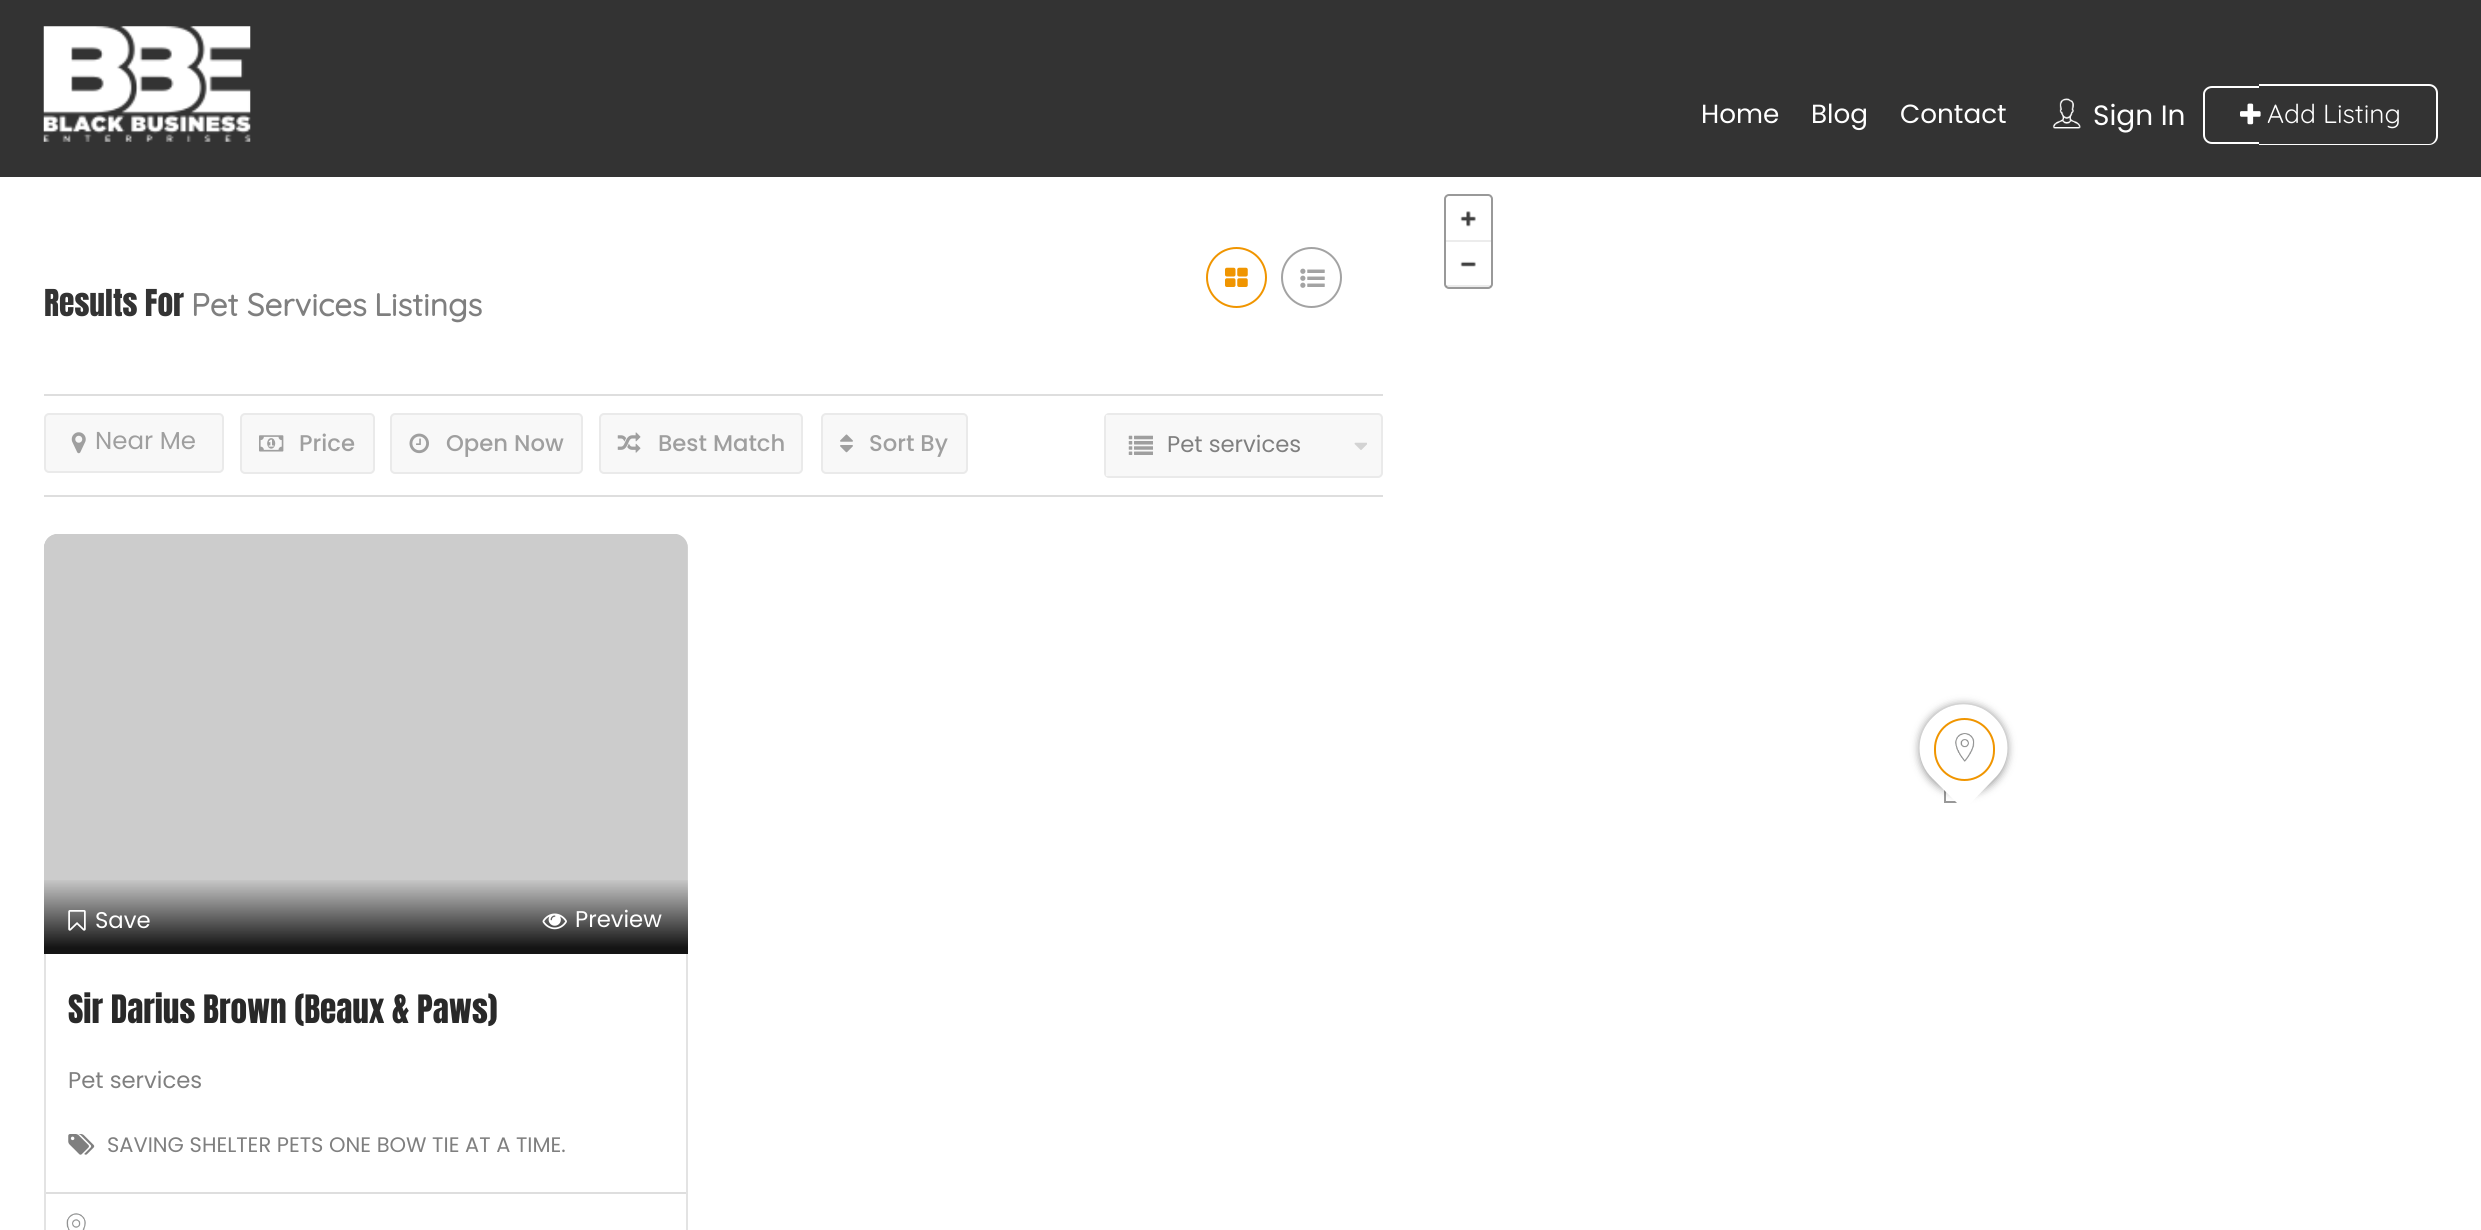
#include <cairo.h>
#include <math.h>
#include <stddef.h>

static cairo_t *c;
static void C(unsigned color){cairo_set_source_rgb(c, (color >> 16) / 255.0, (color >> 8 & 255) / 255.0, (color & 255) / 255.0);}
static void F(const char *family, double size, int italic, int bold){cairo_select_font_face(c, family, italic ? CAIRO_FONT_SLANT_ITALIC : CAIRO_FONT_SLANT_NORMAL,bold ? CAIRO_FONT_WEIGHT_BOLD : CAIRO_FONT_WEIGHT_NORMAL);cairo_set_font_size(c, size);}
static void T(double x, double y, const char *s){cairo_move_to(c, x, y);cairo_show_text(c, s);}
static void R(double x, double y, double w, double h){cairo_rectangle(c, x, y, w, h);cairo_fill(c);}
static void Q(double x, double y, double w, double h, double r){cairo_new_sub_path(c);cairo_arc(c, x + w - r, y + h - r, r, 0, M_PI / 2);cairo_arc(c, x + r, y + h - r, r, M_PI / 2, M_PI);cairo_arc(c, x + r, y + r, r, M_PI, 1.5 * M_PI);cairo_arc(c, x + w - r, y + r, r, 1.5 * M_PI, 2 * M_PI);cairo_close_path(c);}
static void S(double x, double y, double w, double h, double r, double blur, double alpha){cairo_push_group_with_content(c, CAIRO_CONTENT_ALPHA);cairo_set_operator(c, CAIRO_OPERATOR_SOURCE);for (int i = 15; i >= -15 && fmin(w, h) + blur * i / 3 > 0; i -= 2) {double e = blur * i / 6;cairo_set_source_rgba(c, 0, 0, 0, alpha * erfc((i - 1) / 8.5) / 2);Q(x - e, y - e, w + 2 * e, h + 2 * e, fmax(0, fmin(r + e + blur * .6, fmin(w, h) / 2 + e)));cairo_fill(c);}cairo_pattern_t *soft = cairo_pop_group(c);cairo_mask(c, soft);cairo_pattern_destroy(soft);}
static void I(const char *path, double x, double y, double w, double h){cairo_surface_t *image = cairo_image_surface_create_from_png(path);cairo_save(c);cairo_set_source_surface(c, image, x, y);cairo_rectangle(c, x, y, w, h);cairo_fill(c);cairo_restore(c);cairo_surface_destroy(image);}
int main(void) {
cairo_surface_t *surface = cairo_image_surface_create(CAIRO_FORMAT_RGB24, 2481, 1230);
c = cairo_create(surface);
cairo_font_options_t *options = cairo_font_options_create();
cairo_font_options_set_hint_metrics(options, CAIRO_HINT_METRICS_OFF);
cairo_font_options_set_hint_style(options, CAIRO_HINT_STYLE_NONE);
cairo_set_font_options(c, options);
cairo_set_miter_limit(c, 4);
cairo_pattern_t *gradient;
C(0xffffff);
cairo_paint(c);
C(0x333333);
R(0,0,2481,177);
I("1.png",43,26,208,116);
F("Poppins",26.25,0,0);
C(0xffffff);
T(1701,123,"Home");
T(1811,123,"Blog");
T(1900,123,"Contact");
I("2.png",2052,98,29,31);
F("Poppins",28,0,0);
T(2093,125,"Sign In");
cairo_set_fill_rule(c,CAIRO_FILL_RULE_EVEN_ODD);
cairo_new_path(c);
cairo_move_to(c,2212,86);
cairo_line_to(c,2259,86);
cairo_line_to(c,2259,144);
cairo_line_to(c,2212,144);
cairo_curve_to(c,2207,144,2203,140,2203,135);
cairo_line_to(c,2203,94);
cairo_curve_to(c,2203,90,2207,86,2212,86);
cairo_close_path(c);
cairo_move_to(c,2212,88);
cairo_line_to(c,2259,88);
cairo_line_to(c,2259,142);
cairo_line_to(c,2212,142);
cairo_curve_to(c,2208,142,2205,139,2205,135);
cairo_line_to(c,2205,94);
cairo_curve_to(c,2205,91,2208,88,2212,88);
cairo_close_path(c);
cairo_fill(c);
cairo_new_path(c);
cairo_move_to(c,2259,84);
cairo_line_to(c,2429,84);
cairo_curve_to(c,2434,84,2438,88,2438,93);
cairo_line_to(c,2438,136);
cairo_curve_to(c,2438,141,2434,145,2429,145);
cairo_line_to(c,2259,145);
cairo_close_path(c);
cairo_move_to(c,2259,86);
cairo_line_to(c,2429,86);
cairo_curve_to(c,2433,86,2436,89,2436,93);
cairo_line_to(c,2436,136);
cairo_curve_to(c,2436,140,2433,144,2429,144);
cairo_line_to(c,2259,144);
cairo_close_path(c);
cairo_fill(c);
I("3.png",2240,103,21,22);
F("Quicksand Light",26.25,0,0);
T(2267,123,"Add Listing");
F("Anton",31.5,0,0);
C(0x333333);
T(44,316,"Results For");
F("Quicksand",31.5,0,1);
C(0x7f7f7f);
T(191,316,"Pet Services");
T(374,316,"Listings");
cairo_new_path(c);
cairo_arc(c,1236.5,277.5,29.5,0,2 * M_PI);
C(0xf09500);
cairo_stroke(c);
I("4.png",1225,267,23,20);
cairo_arc(c,1311.5,277.5,29.5,0,2 * M_PI);
C(0xa3a3a3);
cairo_stroke(c);
I("5.png",1300,268,25,20);
C(0xdedede);
R(44,394,1339,2);
R(44,495,1339,2);
C(0xf8f8f8);
Q(45,414,178,58,4);
cairo_fill_preserve(c);
C(0xeaeaea);
cairo_stroke(c);
I("6.png",71,432,15,22);
F("Poppins",24.5,0,0);
C(0x9f9f9f);
T(95,449,"Near Me");
C(0xf8f8f8);
Q(241,414,133,59,4);
cairo_fill_preserve(c);
C(0xeaeaea);
cairo_stroke(c);
I("7.png",259,435,25,17);
F("Poppins Medium",22.75,0,0);
C(0x9f9f9f);
T(299,451,"Price");
C(0xf8f8f8);
Q(391,414,191,59,4);
cairo_fill_preserve(c);
C(0xeaeaea);
cairo_stroke(c);
I("8.png",409,433,20,21);
C(0x9f9f9f);
T(446,451,"Open Now");
C(0xf8f8f8);
Q(600,414,202,59,4);
cairo_fill_preserve(c);
C(0xeaeaea);
cairo_stroke(c);
I("9.png",617,432,24,21);
C(0x9f9f9f);
T(658,451,"Best Match");
C(0xf8f8f8);
Q(822,414,145,59,4);
cairo_fill_preserve(c);
C(0xeaeaea);
cairo_stroke(c);
I("10.png",840,434,13,19);
C(0x9f9f9f);
T(869,451,"Sort By");
C(0xf8f8f8);
Q(1105,414,277,63,4);
cairo_fill_preserve(c);
C(0xeaeaea);
cairo_stroke(c);
C(0xf8f8f8);
R(1106,415,2,61);
I("11.png",1128,435,25,20);
F("Poppins",22.75,0,0);
C(0x7f7f7f);
T(1167,452,"Pet services");
I("12.png",1354,442,13,8);
Q(45,535,642,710,13);
C(0xe3e3e3);
cairo_stroke(c);
I("13.png",44,534,644,420);
gradient = cairo_pattern_create_linear(366,954,366,873);
cairo_pattern_add_color_stop_rgba(gradient,.08,0,0,0,.9);
cairo_pattern_add_color_stop_rgba(gradient,.94,0,0,0,0);
cairo_set_source(c,gradient);
cairo_pattern_destroy(gradient);
R(44,880,644,74);
I("14.png",68,910,18,21);
C(0xffffff);
T(95,928,"Save");
I("15.png",542,913,25,17);
T(575,927,"Preview");
F("Anton",33.25,0,0);
C(0x292929);
T(68,1023,"Sir Darius Brown (Beaux & Paws)");
F("Poppins",22.75,0,0);
C(0x7f7f7f);
T(68,1088,"Pet services");
I("16.png",68,1134,27,21);
F("Poppins",21,0,0);
T(107,1152,"SAVING SHELTER PETS ONE BOW TIE AT A TIME.");
C(0xdedede);
R(46,1192,640,2);
I("17.png",66,1213,20,17);
Q(1445,195,47,93,4);
C(0x999999);
cairo_stroke(c);
I("18.png",1460,211,16,16);
C(0xececec);
R(1446,240,45,2);
I("19.png",1460,261,16,6);
cairo_set_source_rgba(c,0,0,0,0.08);
R(1446,285,45,2);
cairo_rectangle(c,1945,783,19,19);
C(0x999999);
cairo_stroke(c);
C(0x000000);
S(1920,705,87,88,43.5,4.5,.47);
C(0xffffff);
cairo_set_fill_rule(c,CAIRO_FILL_RULE_WINDING);
cairo_new_path(c);
cairo_move_to(c,1933,717);
cairo_curve_to(c,1950,700,1977,700,1994,717);
cairo_curve_to(c,2012,734,2012,762,1994,779);
cairo_line_to(c,1964,810);
cairo_line_to(c,1933,779);
cairo_curve_to(c,1915,762,1915,734,1933,717);
cairo_close_path(c);
cairo_fill(c);
Q(1935,719,59,61,29.5);
C(0xf09500);
cairo_stroke(c);
I("20.png",1955,733,20,29);
cairo_surface_write_to_png(surface, "o.png");
cairo_font_options_destroy(options);
cairo_destroy(c);
cairo_surface_destroy(surface);
return 0;
}
